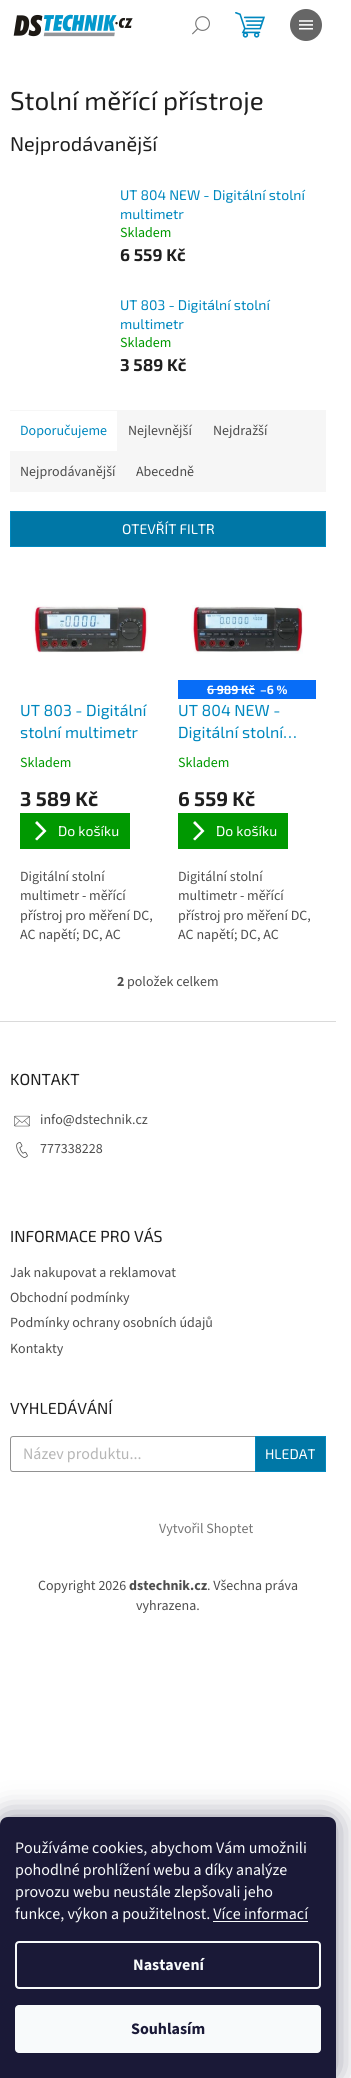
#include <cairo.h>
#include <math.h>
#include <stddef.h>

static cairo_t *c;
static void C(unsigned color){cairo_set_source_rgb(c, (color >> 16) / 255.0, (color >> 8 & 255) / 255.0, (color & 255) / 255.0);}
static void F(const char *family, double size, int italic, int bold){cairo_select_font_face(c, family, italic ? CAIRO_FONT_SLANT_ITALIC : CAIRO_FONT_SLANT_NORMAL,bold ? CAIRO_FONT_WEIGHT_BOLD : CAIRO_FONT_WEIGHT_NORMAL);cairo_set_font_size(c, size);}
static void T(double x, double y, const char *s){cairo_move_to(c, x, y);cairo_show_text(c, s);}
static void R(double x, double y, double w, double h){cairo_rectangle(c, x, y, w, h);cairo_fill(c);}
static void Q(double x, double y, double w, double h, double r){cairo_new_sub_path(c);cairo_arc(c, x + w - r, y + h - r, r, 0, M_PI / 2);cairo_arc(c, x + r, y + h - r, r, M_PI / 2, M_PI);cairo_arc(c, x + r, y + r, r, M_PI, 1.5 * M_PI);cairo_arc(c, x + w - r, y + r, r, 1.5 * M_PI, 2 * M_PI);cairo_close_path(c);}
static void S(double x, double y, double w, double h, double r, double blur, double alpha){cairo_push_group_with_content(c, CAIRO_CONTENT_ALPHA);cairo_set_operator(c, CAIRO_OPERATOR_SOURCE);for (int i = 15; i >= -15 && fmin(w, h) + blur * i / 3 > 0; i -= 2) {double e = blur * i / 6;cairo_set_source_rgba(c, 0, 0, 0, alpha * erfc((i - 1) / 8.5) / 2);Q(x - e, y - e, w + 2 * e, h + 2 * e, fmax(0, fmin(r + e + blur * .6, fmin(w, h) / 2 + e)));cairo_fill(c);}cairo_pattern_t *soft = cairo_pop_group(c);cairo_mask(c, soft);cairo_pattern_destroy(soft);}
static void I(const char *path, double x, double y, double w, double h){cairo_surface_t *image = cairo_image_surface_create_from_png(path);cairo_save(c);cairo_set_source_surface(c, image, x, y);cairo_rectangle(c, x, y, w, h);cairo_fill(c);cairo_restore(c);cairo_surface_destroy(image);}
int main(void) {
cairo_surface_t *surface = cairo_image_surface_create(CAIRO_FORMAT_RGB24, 351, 2078);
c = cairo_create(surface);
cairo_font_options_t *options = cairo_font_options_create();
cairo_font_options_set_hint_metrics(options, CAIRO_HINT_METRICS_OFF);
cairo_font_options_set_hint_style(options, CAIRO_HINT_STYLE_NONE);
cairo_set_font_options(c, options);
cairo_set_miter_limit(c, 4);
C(0xffffff);
cairo_paint(c);
I("1.png",192,16,18,19);
C(0x666666);
cairo_arc(c,306,25,16,0,2 * M_PI);
cairo_fill(c);
I("2.png",299,20,14,10);
I("3.png",13,14,120,23);
I("4.png",235,12,30,26);
F("Exo 2",26,0,0);
C(0x1f1f1f);
T(10,110,"Stolní měřící přístroje");
F("Exo 2",20,0,0);
T(10,151,"Nejprodávanější");
F("Exo 2",14,0,0);
C(0x0088bf);
T(120,200,"UT 804 NEW - Digitální stolní");
T(120,219,"multimetr");
F("Source Sans 3",14,0,0);
C(0x009901);
T(120,237,"Skladem");
F("Exo 2",17,0,1);
C(0x1f1f1f);
T(120,261,"6 559 Kč");
F("Exo 2",14,0,0);
C(0x0088bf);
T(120,310,"UT 803 - Digitální stolní");
T(120,329,"multimetr");
F("Source Sans 3",14,0,0);
C(0x009901);
T(120,347,"Skladem");
F("Exo 2",17,0,1);
C(0x1f1f1f);
T(120,371,"3 589 Kč");
C(0xf6f6f6);
R(10,410,316,82);
C(0xffffff);
R(10,411,107,40);
F("Source Sans 3",14,0,0);
C(0x0088bf);
T(20,435,"Doporučujeme");
C(0x4d4d4d);
T(128,435,"Nejlevnější");
T(213,435,"Nejdražší");
T(20,476,"Nejprodávanější");
T(136,476,"Abecedně");
C(0x0077a6);
cairo_rectangle(c,10.5,511.5,315,35);
cairo_fill_preserve(c);
C(0x0088bf);
cairo_set_line_width(c,1);
cairo_stroke(c);
F("Exo 2",14,0,0);
C(0xffffff);
T(122,534,"OTEVŘÍT FILTR");
I("5.png",31,605,117,48);
F("Exo 2",16,0,0);
C(0x0088bf);
T(20,716,"UT 803 - Digitální");
T(20,738,"stolní multimetr");
F("Source Sans 3",14,0,0);
C(0x009901);
T(20,767,"Skladem");
F("Exo 2",20,0,1);
C(0x1f1f1f);
T(20,806,"3 589 Kč");
C(0x009901);
R(20,813,110,36);
C(0xffffff);
cairo_new_path(c);
cairo_move_to(c,37,840.5);
cairo_line_to(c,35,839);
cairo_line_to(c,43,831);
cairo_line_to(c,35,823);
cairo_line_to(c,37,821);
cairo_line_to(c,46.5,831);
cairo_close_path(c);
cairo_fill(c);
F("Exo 2",14,0,0);
T(58,836,"Do košíku");
F("Source Sans 3",14,0,0);
C(0x4d4d4d);
T(20,881,"Digitální stolní");
T(20,900,"multimetr - měřící");
T(20,920,"přístroj pro měření DC,");
T(20,939,"AC napětí; DC, AC");
I("6.png",191,605,112,49);
C(0x086df7);
R(178,680,138,19);
F("Exo 2",12,0,1);
C(0xffffff);
T(207,694,"6 989 Kč");
R(207,689,48,1);
T(260,694,"–6 %");
F("Exo 2",16,0,0);
C(0x0088bf);
T(178,716,"UT 804 NEW -");
T(178,738,"Digitální stolní…");
F("Source Sans 3",14,0,0);
C(0x009901);
T(178,767,"Skladem");
F("Exo 2",20,0,1);
C(0x1f1f1f);
T(178,806,"6 559 Kč");
C(0x009901);
R(178,813,110,36);
C(0xffffff);
cairo_new_path(c);
cairo_move_to(c,195,840.5);
cairo_line_to(c,193,839);
cairo_line_to(c,201,831);
cairo_line_to(c,193,823);
cairo_line_to(c,195,821);
cairo_line_to(c,204.5,831);
cairo_close_path(c);
cairo_fill(c);
F("Exo 2",14,0,0);
T(216,836,"Do košíku");
F("Source Sans 3",14,0,0);
C(0x4d4d4d);
T(178,881,"Digitální stolní");
T(178,900,"multimetr - měřící");
T(178,920,"přístroj pro měření DC,");
T(178,939,"AC napětí; DC, AC");
F("Source Sans 3",14,0,1);
T(117,986,"2");
F("Source Sans 3",14,0,0);
T(127,986,"položek celkem");
C(0xdadada);
R(0,1021,336,1);
F("Exo 2",16,0,0);
C(0x1f1f1f);
T(10,1085,"KONTAKT");
I("7.png",14,1115,16,12);
F("Source Sans 3",14,0,0);
C(0x4d4d4d);
T(40,1124,"info@dstechnik.cz");
I("8.png",16,1142,12,16);
T(40,1153,"777338228");
F("Exo 2",16,0,0);
C(0x1f1f1f);
T(10,1242,"INFORMACE PRO VÁS");
F("Source Sans 3",14,0,0);
C(0x4d4d4d);
T(10,1277,"Jak nakupovat a reklamovat");
T(10,1302,"Obchodní podmínky");
T(10,1327,"Podmínky ochrany osobních údajů");
T(10,1353,"Kontakty");
F("Exo 2",16,0,0);
C(0x1f1f1f);
T(10,1414,"VYHLEDÁVÁNÍ");
Q(10.5,1436.5,315,35,2.5);
C(0x919191);
cairo_stroke(c);
F("Source Sans 3",16,0,0);
C(0xb6b6b6);
T(23,1459,"Název produktu...");
C(0x0077a6);
cairo_rectangle(c,255.5,1436.5,70,35);
cairo_fill_preserve(c);
C(0x0088bf);
cairo_stroke(c);
F("Exo 2",14,0,0);
C(0xffffff);
T(265,1459,"HLEDAT");
F("Source Sans 3",14,0,0);
C(0x767676);
T(159,1533,"Vytvořil Shoptet");
C(0x4d4d4d);
T(38,1590,"Copyright 2026");
F("Source Sans 3",14,0,1);
T(129,1590,"dstechnik.cz");
F("Source Sans 3",14,0,0);
T(207,1590,". Všechna práva");
T(136,1610,"vyhrazena.");
C(0x1b1939);
S(0,1817,336,261,8,15,.5);
C(0x1a1937);
cairo_new_path(c);
cairo_move_to(c,8,1817);
cairo_line_to(c,328,1817);
cairo_curve_to(c,332.5,1817,336,1820.5,336,1825);
cairo_line_to(c,336,2078);
cairo_line_to(c,0,2078);
cairo_line_to(c,0,1825);
cairo_curve_to(c,0,1820.5,3.5,1817,8,1817);
cairo_close_path(c);
cairo_fill(c);
F("Source Sans 3",16,0,0);
C(0xf8fafb);
T(15,1853,"Používáme cookies, abychom Vám umožnili");
T(15,1875,"pohodlné prohlížení webu a díky analýze");
T(15,1897,"provozu webu neustále zlepšovali jeho");
T(15,1919,"funkce, výkon a použitelnost. Více informací");
R(213,1921,95,1);
Q(16,1942,304,46,3);
cairo_set_line_width(c,2);
cairo_stroke(c);
F("Source Sans 3",16,0,1);
T(133,1970,"Nastavení");
Q(15,2005,306,48,4);
cairo_fill(c);
C(0x1a1937);
T(131,2034,"Souhlasím");
cairo_surface_write_to_png(surface, "o.png");
cairo_font_options_destroy(options);
cairo_destroy(c);
cairo_surface_destroy(surface);
return 0;
}
